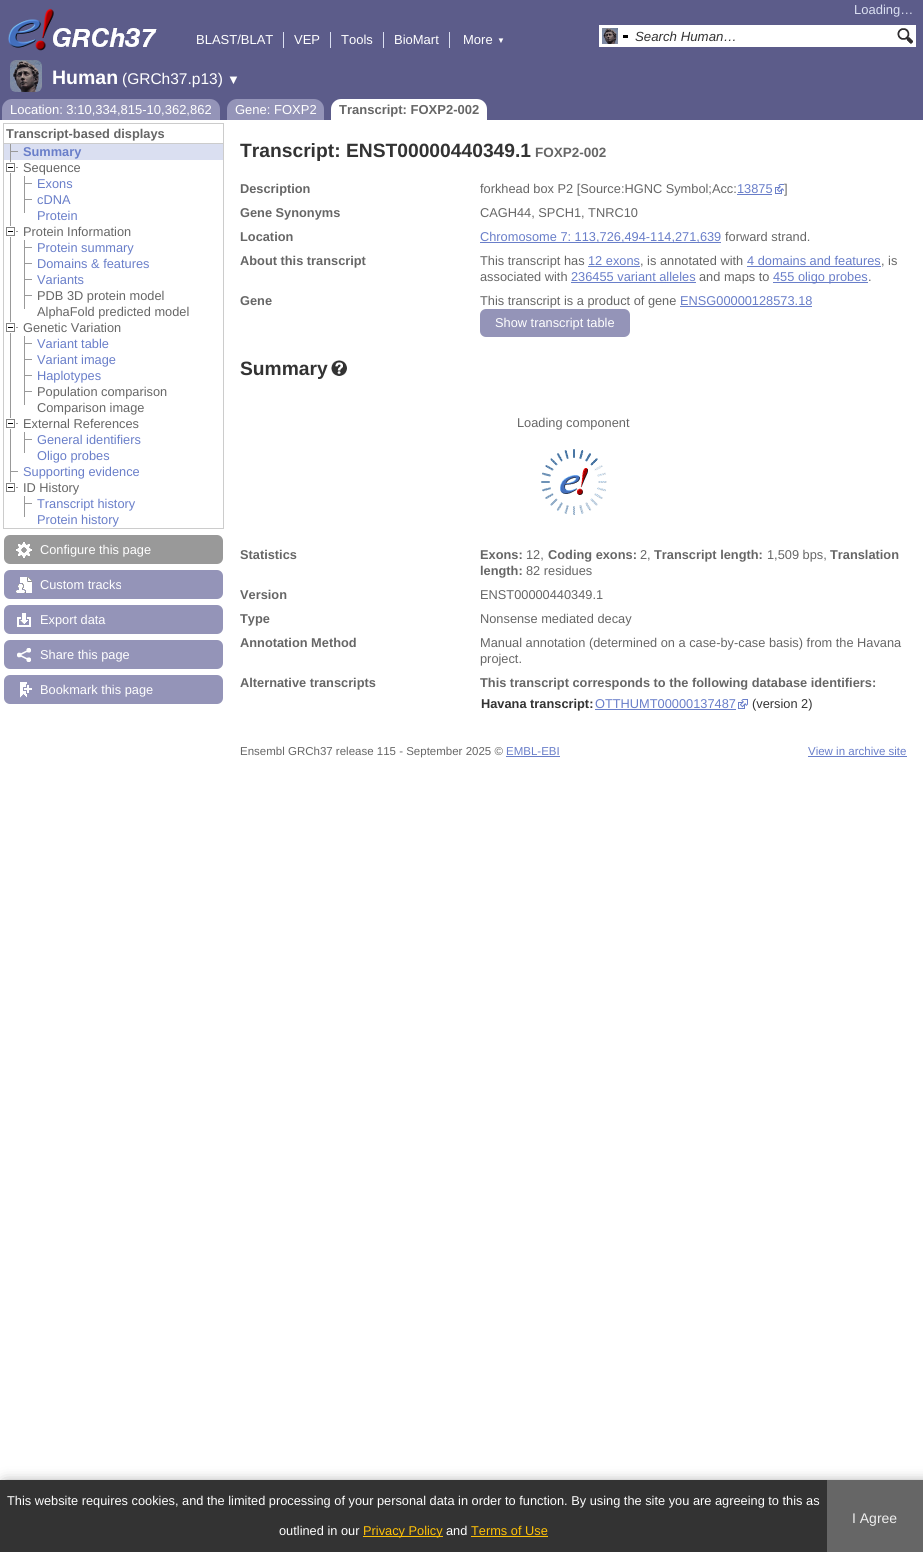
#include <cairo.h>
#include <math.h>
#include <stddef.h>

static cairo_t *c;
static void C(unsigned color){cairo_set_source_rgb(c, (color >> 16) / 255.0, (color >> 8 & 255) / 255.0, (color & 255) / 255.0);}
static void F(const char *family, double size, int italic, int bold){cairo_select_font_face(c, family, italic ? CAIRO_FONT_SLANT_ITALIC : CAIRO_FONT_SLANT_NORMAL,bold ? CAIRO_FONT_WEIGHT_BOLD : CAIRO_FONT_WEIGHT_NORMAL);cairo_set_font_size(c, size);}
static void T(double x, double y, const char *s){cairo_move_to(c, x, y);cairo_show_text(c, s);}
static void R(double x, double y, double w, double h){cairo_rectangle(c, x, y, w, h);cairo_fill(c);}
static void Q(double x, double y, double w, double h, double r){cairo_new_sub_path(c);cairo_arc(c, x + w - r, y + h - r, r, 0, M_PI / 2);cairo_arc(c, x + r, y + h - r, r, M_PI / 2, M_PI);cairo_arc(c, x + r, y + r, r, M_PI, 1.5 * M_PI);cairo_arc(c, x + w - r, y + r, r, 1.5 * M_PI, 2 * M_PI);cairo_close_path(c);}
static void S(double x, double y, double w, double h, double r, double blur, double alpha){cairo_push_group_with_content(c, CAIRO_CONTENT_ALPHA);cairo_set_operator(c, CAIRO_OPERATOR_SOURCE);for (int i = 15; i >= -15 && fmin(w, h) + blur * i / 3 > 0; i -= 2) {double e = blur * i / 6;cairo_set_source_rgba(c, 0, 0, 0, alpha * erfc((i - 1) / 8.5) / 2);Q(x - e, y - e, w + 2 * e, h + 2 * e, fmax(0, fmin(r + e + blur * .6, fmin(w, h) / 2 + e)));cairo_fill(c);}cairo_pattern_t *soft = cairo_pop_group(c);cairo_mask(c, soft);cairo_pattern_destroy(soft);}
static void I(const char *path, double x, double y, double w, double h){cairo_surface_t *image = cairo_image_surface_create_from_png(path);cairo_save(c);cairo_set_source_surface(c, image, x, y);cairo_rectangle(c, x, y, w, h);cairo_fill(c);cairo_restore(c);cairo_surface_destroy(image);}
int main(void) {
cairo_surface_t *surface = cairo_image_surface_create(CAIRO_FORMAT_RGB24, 923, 1552);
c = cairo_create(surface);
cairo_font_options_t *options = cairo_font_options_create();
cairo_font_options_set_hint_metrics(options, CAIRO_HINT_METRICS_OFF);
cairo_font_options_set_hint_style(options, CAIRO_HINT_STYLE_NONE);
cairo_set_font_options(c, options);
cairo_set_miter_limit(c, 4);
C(0xffffff);
cairo_paint(c);
C(0x5c5c8a);
R(0,0,923,120);
I("1.png",8,8,149,43);
F("Liberation Sans",13,0,0);
C(0xdadff1);
T(854,14,"Loading…");
R(283,32,1,16);
C(0xffffff);
T(196,44,"BLAST/BLAT");
C(0xdadff1);
R(330,32,1,16);
C(0xffffff);
T(294,44,"VEP");
C(0xdadff1);
R(383,32,1,16);
C(0xffffff);
T(341,44,"Tools");
C(0xdadff1);
R(449,32,1,16);
C(0xffffff);
T(394,44,"BioMart");
T(463,44,"More");
F("Liberation Sans",8,0,0);
T(497,43,"▼");
R(599,25,317,22);
I("2.png",602,28,16,16);
C(0x000000);
R(623,35,5,3);
F("Liberation Sans",13.25,1,0);
C(0x333333);
T(635,41,"Search Human…");
I("3.png",897,28,16,16);
I("4.png",10,60,32,32);
F("Liberation Sans",19.5,0,1);
C(0xffffff);
T(52,84,"Human");
F("Liberation Sans",15.5,0,0);
T(122,84,"(GRCh37.p13)");
F("Liberation Sans",13,0,0);
T(227,84,"▼");
C(0x9494b8);
cairo_new_path(c);
cairo_move_to(c,12,99);
cairo_line_to(c,210,99);
cairo_curve_to(c,215.5,99,220,103.5,220,109);
cairo_line_to(c,220,120);
cairo_line_to(c,2,120);
cairo_line_to(c,2,109);
cairo_curve_to(c,2,103.5,6.5,99,12,99);
cairo_close_path(c);
cairo_fill(c);
C(0xffffff);
T(10,114,"Location: 3:10,334,815-10,362,862");
C(0x9494b8);
cairo_new_path(c);
cairo_move_to(c,237,99);
cairo_line_to(c,314,99);
cairo_curve_to(c,319.5,99,324,103.5,324,109);
cairo_line_to(c,324,120);
cairo_line_to(c,227,120);
cairo_line_to(c,227,109);
cairo_curve_to(c,227,103.5,231.5,99,237,99);
cairo_close_path(c);
cairo_fill(c);
C(0xffffff);
T(235,114,"Gene: FOXP2");
cairo_new_path(c);
cairo_move_to(c,341,99);
cairo_line_to(c,477,99);
cairo_curve_to(c,482.5,99,487,103.5,487,109);
cairo_line_to(c,487,120);
cairo_line_to(c,331,120);
cairo_line_to(c,331,109);
cairo_curve_to(c,331,103.5,335.5,99,341,99);
cairo_close_path(c);
cairo_fill(c);
F("Liberation Sans",13,0,1);
C(0x666666);
T(339,114,"Transcript: FOXP2-002");
C(0xcccccc);
R(3,123,221,1);
R(223,123,1,20);
R(3,123,1,20);
F("Liberation Sans",12.8,0,1);
C(0x666666);
T(6,138,"Transcript-based displays");
cairo_rectangle(c,3.5,143.5,220,385);
C(0xcccccc);
cairo_set_line_width(c,1);
cairo_stroke(c);
C(0xdadff1);
R(4,144,219,16);
C(0x999999);
R(10,144,1,341);
C(0x9a9a9a);
R(11,151,7,1);
C(0x697ec9);
T(23,156,"Summary");
I("5.png",6,162,12,11);
F("Liberation Sans",12.8,0,0);
C(0x666666);
T(23,172,"Sequence");
C(0x999999);
R(24,176,1,37);
C(0x9a9a9a);
R(25,183,7,1);
C(0x697ec9);
T(37,188,"Exons");
C(0x9a9a9a);
R(25,199,7,1);
C(0x697ec9);
T(37,204,"cDNA");
T(37,220,"Protein");
I("5.png",6,226,12,11);
C(0x666666);
T(23,236,"Protein Information");
C(0x999999);
R(24,240,1,69);
C(0x9a9a9a);
R(25,247,7,1);
C(0x697ec9);
T(37,252,"Protein summary");
C(0x9a9a9a);
R(25,263,7,1);
C(0x697ec9);
T(37,268,"Domains & features");
C(0x9a9a9a);
R(25,279,7,1);
C(0x697ec9);
T(37,284,"Variants");
C(0x9a9a9a);
R(25,295,7,1);
C(0x666666);
T(37,300,"PDB 3D protein model");
T(37,316,"AlphaFold predicted model");
I("5.png",6,322,12,11);
T(23,332,"Genetic Variation");
C(0x999999);
R(24,336,1,69);
C(0x9a9a9a);
R(25,343,7,1);
C(0x697ec9);
T(37,348,"Variant table");
C(0x9a9a9a);
R(25,359,7,1);
C(0x697ec9);
T(37,364,"Variant image");
C(0x9a9a9a);
R(25,375,7,1);
C(0x697ec9);
T(37,380,"Haplotypes");
C(0x9a9a9a);
R(25,391,7,1);
C(0x666666);
T(37,396,"Population comparison");
T(37,412,"Comparison image");
I("5.png",6,418,12,11);
T(23,428,"External References");
C(0x999999);
R(24,432,1,21);
C(0x9a9a9a);
R(25,439,7,1);
C(0x697ec9);
T(37,444,"General identifiers");
T(37,460,"Oligo probes");
C(0x9a9a9a);
R(11,471,7,1);
C(0x697ec9);
T(23,476,"Supporting evidence");
I("6.png",6,482,12,10);
C(0x666666);
T(23,492,"ID History");
C(0x999999);
R(24,496,1,21);
C(0x9a9a9a);
R(25,503,7,1);
C(0x697ec9);
T(37,508,"Transcript history");
T(37,524,"Protein history");
C(0x999999);
Q(4,535,219,29,6);
cairo_fill(c);
I("7.png",16,542,16,16);
C(0xffffff);
T(40,554,"Configure this page");
C(0x9494b8);
Q(4,570,219,29,6);
cairo_fill(c);
I("8.png",16,577,16,16);
C(0xffffff);
T(40,589,"Custom tracks");
C(0x9494b8);
Q(4,605,219,29,6);
cairo_fill(c);
I("9.png",17,613,14,14);
C(0xffffff);
T(40,624,"Export data");
C(0x9494b8);
Q(4,640,219,29,6);
cairo_fill(c);
I("10.png",17,648,14,14);
C(0xffffff);
T(40,659,"Share this page");
C(0x9494b8);
Q(4,675,219,29,6);
cairo_fill(c);
I("11.png",20,682,12,16);
C(0xffffff);
T(40,694,"Bookmark this page");
F("Liberation Sans",19.25,0,1);
C(0x333333);
T(240,157,"Transcript: ENST00000440349.1");
F("Liberation Sans",13.5,0,1);
C(0x666666);
T(535,157,"FOXP2-002");
F("Liberation Sans",12.8,0,1);
T(240,193,"Description");
F("Liberation Sans",12.8,0,0);
T(480,193,"forkhead box P2 [Source:HGNC Symbol;Acc:");
C(0x697ec9);
T(737,193,"13875");
R(737,194,35,1);
I("12.png",775,184,9,10);
C(0x666666);
T(784,193,"]");
F("Liberation Sans",12.8,0,1);
T(240,217,"Gene Synonyms");
F("Liberation Sans",12.8,0,0);
T(480,217,"CAGH44, SPCH1, TNRC10");
F("Liberation Sans",12.8,0,1);
T(240,241,"Location");
C(0x697ec9);
R(480,242,241,1);
F("Liberation Sans",12.8,0,0);
T(480,241,"Chromosome 7: 113,726,494-114,271,639");
C(0x666666);
T(725,241,"forward strand.");
F("Liberation Sans",12.8,0,1);
T(240,265,"About this transcript");
F("Liberation Sans",12.8,0,0);
T(480,265,"This transcript has");
C(0x697ec9);
T(588,265,"12 exons");
R(588,266,52,1);
C(0x666666);
T(640,265,", is annotated with");
C(0x697ec9);
T(747,265,"4 domains and features");
R(747,266,134,1);
C(0x666666);
T(881,265,", is");
T(480,281,"associated with");
C(0x697ec9);
T(571,281,"236455 variant alleles");
R(571,282,125,1);
C(0x666666);
T(699,281,"and maps to");
C(0x697ec9);
R(773,282,95,1);
T(773,281,"455 oligo probes");
C(0x666666);
T(868,281,".");
F("Liberation Sans",12.8,0,1);
T(240,305,"Gene");
F("Liberation Sans",12.8,0,0);
T(480,305,"This transcript is a product of gene");
C(0x697ec9);
T(680,305,"ENSG00000128573.18");
R(680,306,132,1);
C(0x9494b8);
Q(480,309,150,28,6);
cairo_fill(c);
C(0xffffff);
T(495,327,"Show transcript table");
F("Liberation Sans",19.25,0,1);
C(0x333333);
T(240,375,"Summary");
I("13.png",331,360,16,16);
I("14.png",541,449,66,66);
F("Liberation Sans",12.8,0,0);
C(0x666666);
T(517,427,"Loading component");
F("Liberation Sans",12.8,0,1);
T(240,559,"Statistics");
T(480,559,"Exons:");
F("Liberation Sans",12.8,0,0);
T(526,559,"12,");
F("Liberation Sans",12.8,0,1);
T(548,559,"Coding exons:");
F("Liberation Sans",12.8,0,0);
T(640,559,"2,");
F("Liberation Sans",12.8,0,1);
T(654,559,"Transcript length:");
F("Liberation Sans",12.8,0,0);
T(767,559,"1,509 bps,");
F("Liberation Sans",12.8,0,1);
T(830,559,"Translation");
T(480,575,"length:");
F("Liberation Sans",12.8,0,0);
T(526,575,"82 residues");
F("Liberation Sans",12.8,0,1);
T(240,599,"Version");
F("Liberation Sans",12.8,0,0);
T(480,599,"ENST00000440349.1");
F("Liberation Sans",12.8,0,1);
T(240,623,"Type");
F("Liberation Sans",12.8,0,0);
T(480,623,"Nonsense mediated decay");
F("Liberation Sans",12.8,0,1);
T(240,647,"Annotation Method");
F("Liberation Sans",12.8,0,0);
T(480,647,"Manual annotation (determined on a case-by-case basis) from the Havana");
T(480,663,"project.");
F("Liberation Sans",12.8,0,1);
T(240,687,"Alternative transcripts");
T(480,687,"This transcript corresponds to the following database identifiers:");
C(0x333333);
T(481,708,"Havana transcript:");
F("Liberation Sans",12.8,0,0);
C(0x697ec9);
T(595,708,"OTTHUMT00000137487");
R(595,709,141,1);
I("15.png",738,699,10,10);
C(0x333333);
T(752,708,"(version 2)");
F("Liberation Sans",11.5,0,0);
C(0x666666);
T(240,755,"Ensembl GRCh37 release 115 - September 2025 ©");
C(0x697ec9);
T(506,755,"EMBL-EBI");
R(506,756,54,1);
T(808,755,"View in archive site");
R(808,756,99,1);
C(0x666666);
S(5,1485,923,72,0,7.5,1);
C(0x333333);
R(0,1480,827,72);
F("Liberation Sans",12.8,0,0);
C(0xffffff);
T(7,1505,"This website requires cookies, and the limited processing of your personal data in order to function. By using the site you are agreeing to this as");
T(279,1535,"outlined in our");
C(0xffc107);
R(363,1536,80,1);
T(363,1535,"Privacy Policy");
C(0xffffff);
T(446,1535,"and");
C(0xffc107);
T(471,1535,"Terms of Use");
R(471,1536,77,1);
C(0x666666);
R(827,1480,96,72);
F("Liberation Sans",14,0,0);
C(0xeeeeee);
T(852,1523,"I Agree");
cairo_surface_write_to_png(surface, "o.png");
cairo_font_options_destroy(options);
cairo_destroy(c);
cairo_surface_destroy(surface);
return 0;
}
